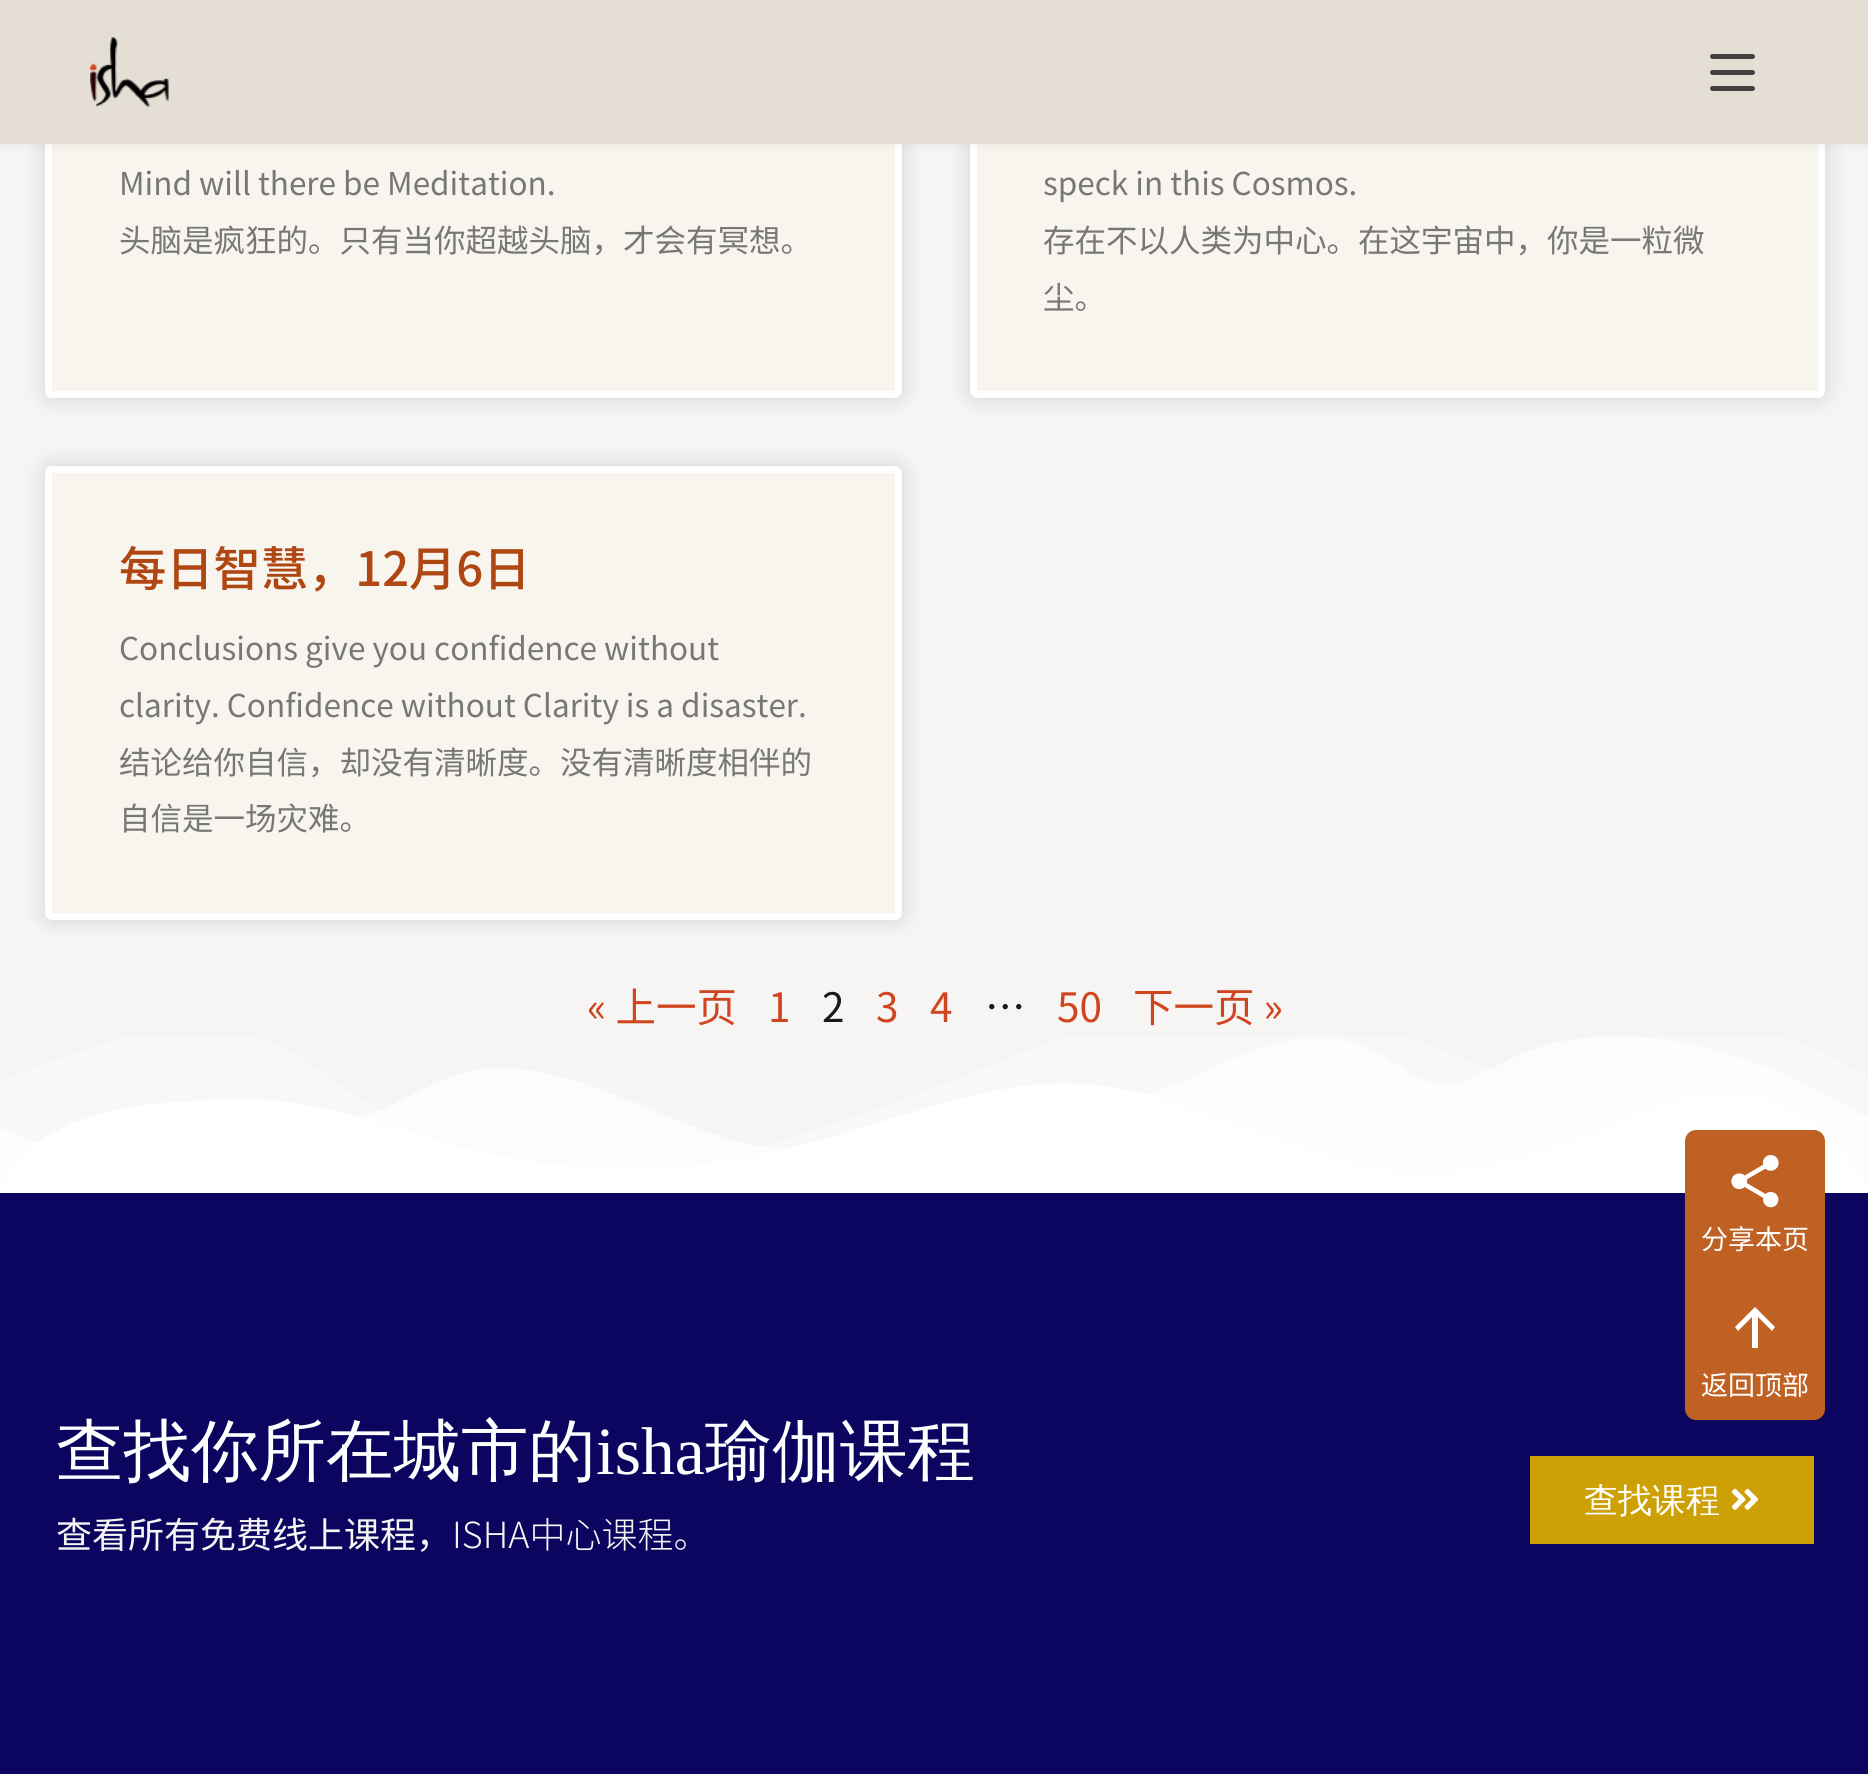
#include <cairo.h>
#include <math.h>
#include <stddef.h>

static cairo_t *c;
static void C(unsigned color){cairo_set_source_rgb(c, (color >> 16) / 255.0, (color >> 8 & 255) / 255.0, (color & 255) / 255.0);}
static void F(const char *family, double size, int italic, int bold){cairo_select_font_face(c, family, italic ? CAIRO_FONT_SLANT_ITALIC : CAIRO_FONT_SLANT_NORMAL,bold ? CAIRO_FONT_WEIGHT_BOLD : CAIRO_FONT_WEIGHT_NORMAL);cairo_set_font_size(c, size);}
static void T(double x, double y, const char *s){cairo_move_to(c, x, y);cairo_show_text(c, s);}
static void R(double x, double y, double w, double h){cairo_rectangle(c, x, y, w, h);cairo_fill(c);}
static void Q(double x, double y, double w, double h, double r){cairo_new_sub_path(c);cairo_arc(c, x + w - r, y + h - r, r, 0, M_PI / 2);cairo_arc(c, x + r, y + h - r, r, M_PI / 2, M_PI);cairo_arc(c, x + r, y + r, r, M_PI, 1.5 * M_PI);cairo_arc(c, x + w - r, y + r, r, 1.5 * M_PI, 2 * M_PI);cairo_close_path(c);}
static void S(double x, double y, double w, double h, double r, double blur, double alpha){cairo_push_group_with_content(c, CAIRO_CONTENT_ALPHA);cairo_set_operator(c, CAIRO_OPERATOR_SOURCE);for (int i = 15; i >= -15 && fmin(w, h) + blur * i / 3 > 0; i -= 2) {double e = blur * i / 6;cairo_set_source_rgba(c, 0, 0, 0, alpha * erfc((i - 1) / 8.5) / 2);Q(x - e, y - e, w + 2 * e, h + 2 * e, fmax(0, fmin(r + e + blur * .6, fmin(w, h) / 2 + e)));cairo_fill(c);}cairo_pattern_t *soft = cairo_pop_group(c);cairo_mask(c, soft);cairo_pattern_destroy(soft);}
static void I(const char *path, double x, double y, double w, double h){cairo_surface_t *image = cairo_image_surface_create_from_png(path);cairo_save(c);cairo_set_source_surface(c, image, x, y);cairo_rectangle(c, x, y, w, h);cairo_fill(c);cairo_restore(c);cairo_surface_destroy(image);}
int main(void) {
cairo_surface_t *surface = cairo_image_surface_create(CAIRO_FORMAT_RGB24, 1868, 1774);
c = cairo_create(surface);
cairo_font_options_t *options = cairo_font_options_create();
cairo_font_options_set_hint_metrics(options, CAIRO_HINT_METRICS_OFF);
cairo_font_options_set_hint_style(options, CAIRO_HINT_STYLE_NONE);
cairo_set_font_options(c, options);
cairo_set_miter_limit(c, 4);
C(0xf6f5f3);
cairo_paint(c);
C(0x000000);
S(45,-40,857,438,7,11,.15);
C(0xf8f5ee);
Q(48.5,-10.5,850,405,3.5);
cairo_fill_preserve(c);
C(0xffffff);
cairo_set_line_width(c,7);
cairo_stroke(c);
C(0x000000);
S(970,-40,855,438,7,11,.15);
C(0xf8f5ee);
Q(973.5,-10.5,848,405,3.5);
cairo_fill_preserve(c);
C(0xffffff);
cairo_stroke(c);
C(0x1a1a1a);
S(-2,-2,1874,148,0,3.5,.06);
C(0xe4ded4);
R(0,0,1868,144);
I("1.png",90,37,79,70);
C(0x42413f);
Q(1710,54,45,5,2.5);
cairo_fill(c);
Q(1710,70,45,5,2.5);
cairo_fill(c);
Q(1710,86,45,5,2.5);
cairo_fill(c);
F("Noto Sans CJK SC",31.5,0,0);
C(0x777777);
T(119,195,"Mind will there be Meditation.");
T(119,252,"头脑是疯狂的。只有当你超越头脑，才会有冥想。");
T(1043,195,"speck in this Cosmos.");
T(1043,252,"存在不以人类为中心。在这宇宙中，你是一粒微");
T(1043,309,"尘。");
C(0x000000);
S(45,466,857,454,7,11,.15);
C(0xf8f5ee);
Q(48.5,469.5,850,447,3.5);
cairo_fill_preserve(c);
C(0xffffff);
cairo_stroke(c);
F("Noto Sans CJK SC Medium",47.25,0,0);
C(0xaf4713);
T(119,586,"每日智慧，12月6日");
F("Noto Sans CJK SC",31.5,0,0);
C(0x777777);
T(119,660,"Conclusions give you confidence without");
T(119,717,"clarity. Confidence without Clarity is a disaster.");
T(119,774,"结论给你自信，却没有清晰度。没有清晰度相伴的");
T(119,830,"自信是一场灾难。");
F("Noto Sans CJK SC",40.5,0,0);
C(0xcf4520);
T(587,1022,"« 上一页");
T(768,1022,"1");
C(0x1a1a1a);
T(822,1022,"2");
C(0xcf4520);
T(876,1022,"3");
T(930,1022,"4");
C(0x1a1a1a);
T(985,1022,"…");
C(0xcf4520);
T(1057,1022,"50");
T(1133,1022,"下一页 »");
I("2.png",0,1036,1868,157);
C(0x0b055f);
R(0,1193,1868,581);
F("WenQuanYi Zen Hei Medium",67.5,0,0);
C(0xffffff);
T(56,1474,"查找你所在城市的");
F("Liberation Serif",67.5,0,0);
T(596,1474,"isha");
F("WenQuanYi Zen Hei Medium",67.5,0,0);
T(705,1474,"瑜伽课程");
F("Noto Sans CJK SC",36,0,0);
C(0xf6f5f3);
T(56,1548,"查看所有免费线上课程，");
F("Noto Sans CJK SC Light",36,0,0);
T(452,1548,"ISHA中心课程。");
C(0xcda005);
R(1530,1456,284,88);
F("WenQuanYi Zen Hei Medium",34,0,0);
C(0xffffff);
T(1584,1512,"查找课程");
I("3.png",1731,1488,28,22);
C(0xcd6725);
cairo_new_path(c);
cairo_move_to(c,1696,1130);
cairo_line_to(c,1814,1130);
cairo_curve_to(c,1820,1130,1825,1135,1825,1141);
cairo_line_to(c,1825,1274);
cairo_line_to(c,1685,1274);
cairo_line_to(c,1685,1141);
cairo_curve_to(c,1685,1135,1690,1130,1696,1130);
cairo_close_path(c);
cairo_fill(c);
cairo_set_source_rgba(c,0.102,0.102,0.102,0.07);
cairo_new_path(c);
cairo_move_to(c,1696,1130);
cairo_line_to(c,1814,1130);
cairo_curve_to(c,1820,1130,1825,1135,1825,1141);
cairo_line_to(c,1825,1274);
cairo_line_to(c,1685,1274);
cairo_line_to(c,1685,1141);
cairo_curve_to(c,1685,1135,1690,1130,1696,1130);
cairo_close_path(c);
cairo_fill(c);
I("4.png",1731,1155,48,53);
F("Noto Sans CJK SC",27,0,0);
C(0xffffff);
T(1701,1249,"分享本页");
C(0xcd6725);
cairo_new_path(c);
cairo_move_to(c,1685,1274);
cairo_line_to(c,1825,1274);
cairo_line_to(c,1825,1409);
cairo_curve_to(c,1825,1415,1820,1420,1814,1420);
cairo_line_to(c,1696,1420);
cairo_curve_to(c,1690,1420,1685,1415,1685,1409);
cairo_close_path(c);
cairo_fill(c);
C(0xbb5f24);
R(1685,1274,140,2);
cairo_set_source_rgba(c,0.102,0.102,0.102,0.07);
cairo_new_path(c);
cairo_move_to(c,1685,1276);
cairo_line_to(c,1825,1276);
cairo_line_to(c,1825,1409);
cairo_curve_to(c,1825,1415,1820,1420,1814,1420);
cairo_line_to(c,1696,1420);
cairo_curve_to(c,1690,1420,1685,1415,1685,1409);
cairo_close_path(c);
cairo_fill(c);
C(0xffffff);
cairo_new_path(c);
cairo_move_to(c,1758,1317);
cairo_line_to(c,1758,1348);
cairo_line_to(c,1752,1348);
cairo_line_to(c,1752,1317);
cairo_line_to(c,1738,1331);
cairo_line_to(c,1735,1327);
cairo_line_to(c,1755,1307);
cairo_line_to(c,1775,1327);
cairo_line_to(c,1772,1331);
cairo_close_path(c);
cairo_fill(c);
T(1701,1395,"返回顶部");
cairo_surface_write_to_png(surface, "o.png");
cairo_font_options_destroy(options);
cairo_destroy(c);
cairo_surface_destroy(surface);
return 0;
}
